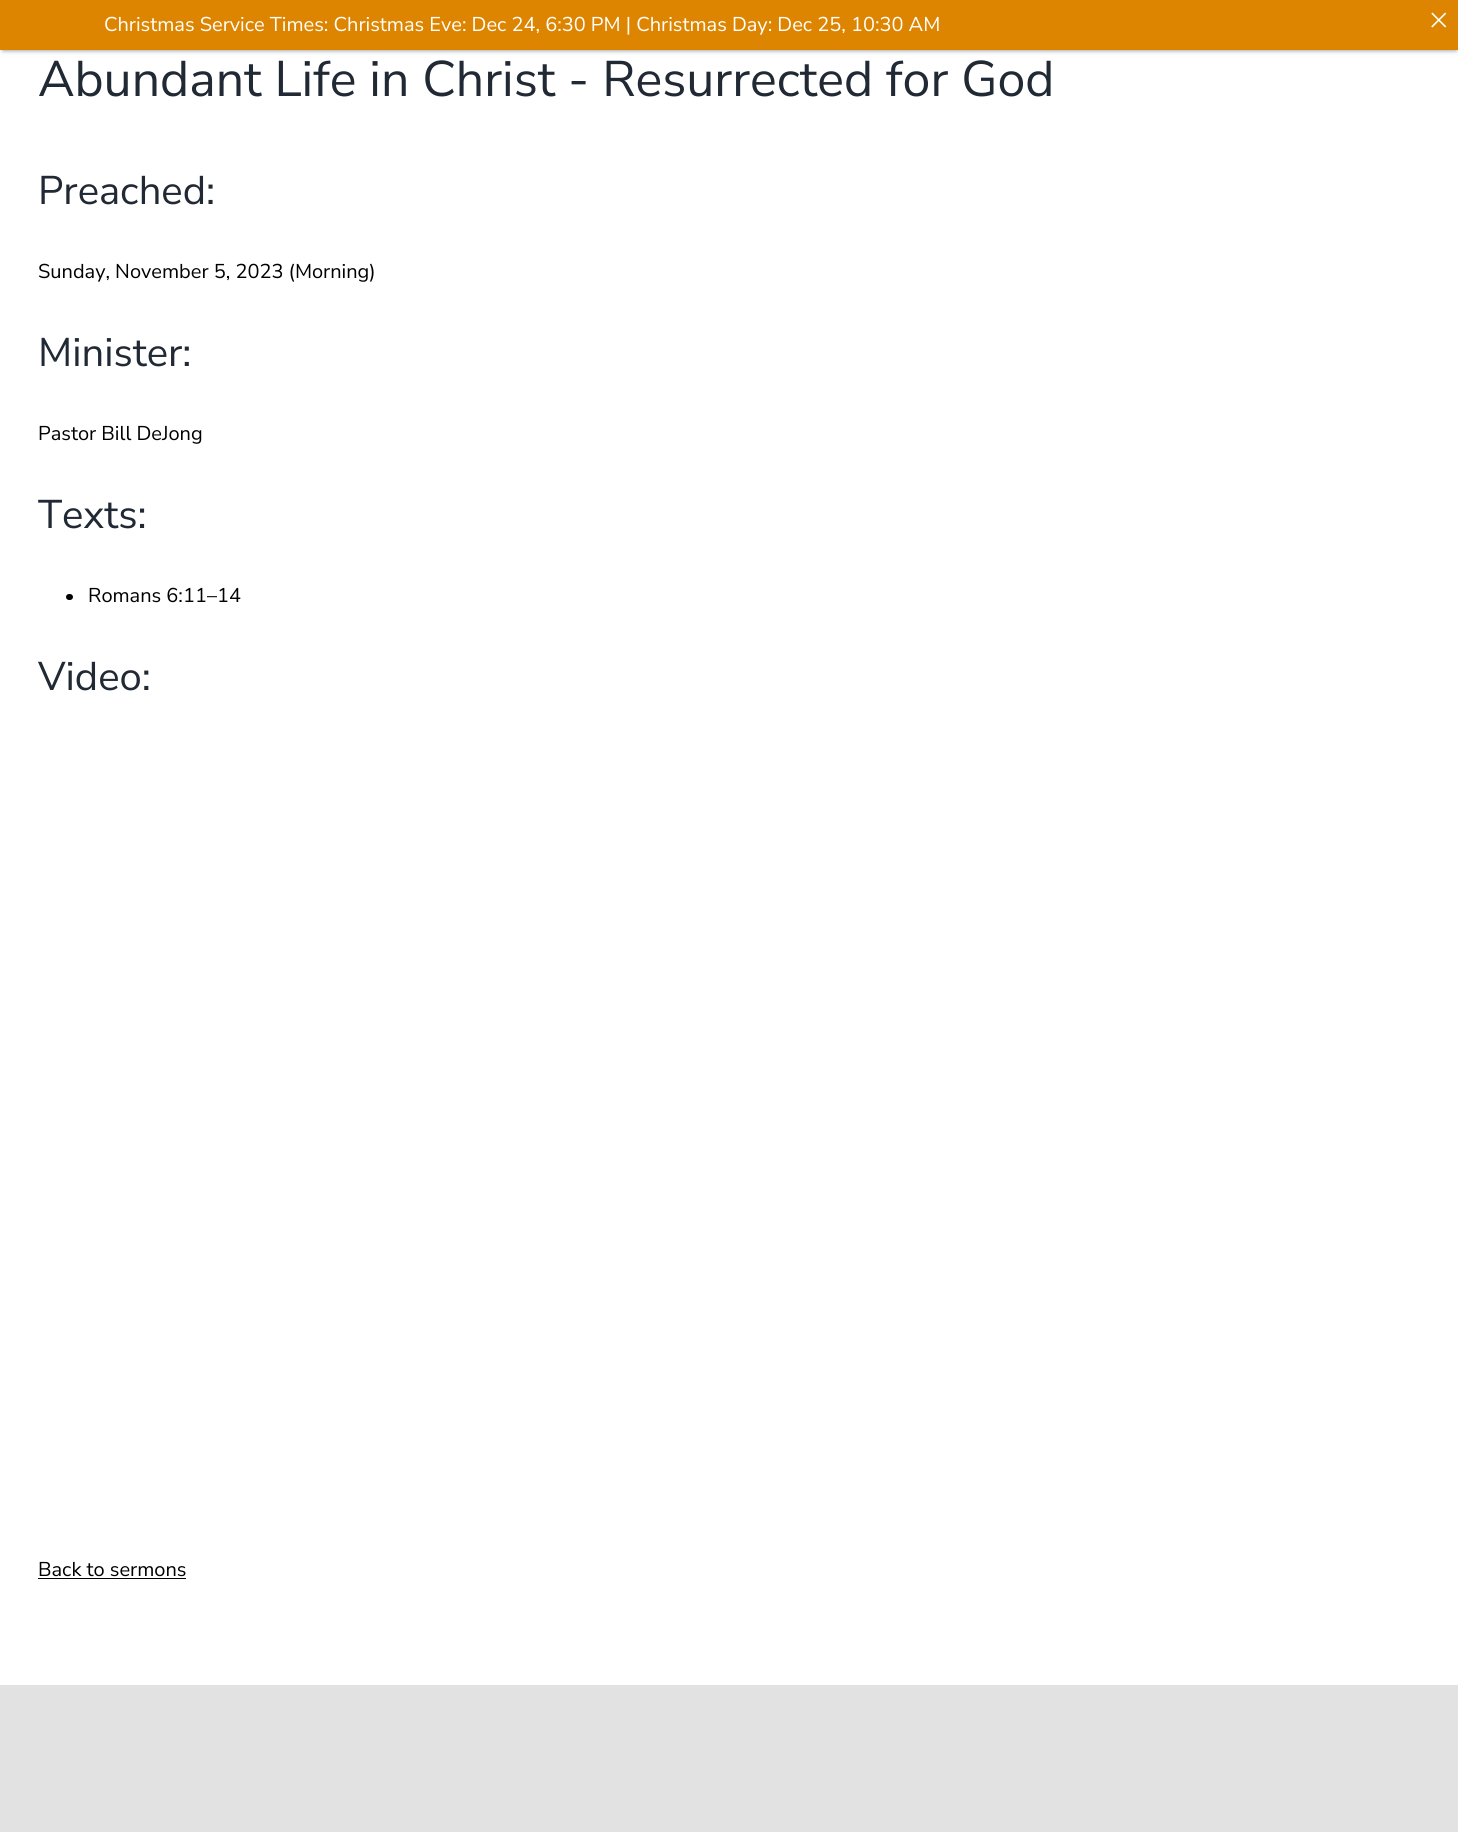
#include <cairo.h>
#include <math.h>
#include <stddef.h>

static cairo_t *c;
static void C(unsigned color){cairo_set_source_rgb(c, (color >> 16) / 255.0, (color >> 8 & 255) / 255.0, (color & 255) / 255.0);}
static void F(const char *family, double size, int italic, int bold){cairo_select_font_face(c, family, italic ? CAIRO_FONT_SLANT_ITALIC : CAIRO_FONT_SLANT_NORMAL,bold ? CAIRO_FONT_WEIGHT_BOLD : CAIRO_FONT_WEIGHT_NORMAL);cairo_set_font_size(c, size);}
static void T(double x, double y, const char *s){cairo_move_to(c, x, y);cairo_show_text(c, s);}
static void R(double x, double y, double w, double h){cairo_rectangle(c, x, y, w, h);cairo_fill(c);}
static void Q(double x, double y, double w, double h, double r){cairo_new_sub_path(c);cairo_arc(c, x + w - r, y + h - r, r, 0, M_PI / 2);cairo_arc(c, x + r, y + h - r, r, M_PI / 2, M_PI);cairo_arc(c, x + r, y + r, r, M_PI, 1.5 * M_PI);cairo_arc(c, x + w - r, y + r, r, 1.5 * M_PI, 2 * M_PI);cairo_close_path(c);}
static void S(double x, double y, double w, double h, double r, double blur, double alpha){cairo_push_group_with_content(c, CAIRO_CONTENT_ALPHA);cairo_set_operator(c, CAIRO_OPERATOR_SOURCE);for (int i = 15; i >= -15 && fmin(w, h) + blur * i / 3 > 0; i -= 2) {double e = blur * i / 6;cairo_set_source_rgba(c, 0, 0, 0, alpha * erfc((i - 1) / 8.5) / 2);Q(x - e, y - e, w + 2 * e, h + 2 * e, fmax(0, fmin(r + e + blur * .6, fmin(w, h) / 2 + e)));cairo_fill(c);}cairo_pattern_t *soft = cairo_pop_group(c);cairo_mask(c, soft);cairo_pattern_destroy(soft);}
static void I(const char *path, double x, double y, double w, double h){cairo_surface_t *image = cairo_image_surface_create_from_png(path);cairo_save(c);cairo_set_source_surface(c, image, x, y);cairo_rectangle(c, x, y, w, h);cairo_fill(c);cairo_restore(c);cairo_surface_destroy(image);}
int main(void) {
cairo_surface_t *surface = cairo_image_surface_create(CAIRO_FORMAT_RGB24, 1458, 1832);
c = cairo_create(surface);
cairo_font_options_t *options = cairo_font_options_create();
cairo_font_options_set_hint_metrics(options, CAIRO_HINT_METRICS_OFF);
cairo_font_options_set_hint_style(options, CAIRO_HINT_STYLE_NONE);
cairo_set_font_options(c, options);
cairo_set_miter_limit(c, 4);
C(0xe2e2e2);
cairo_paint(c);
C(0xffffff);
R(0,50,1458,1635);
C(0x000000);
S(3,5,1453,45,0,2.5,.5);
C(0xdd8500);
R(0,0,1458,50);
F("Nunito Sans",20,0,0);
C(0xffffff);
T(104,31,"Christmas Service Times: Christmas Eve: Dec 24, 6:30 PM | Christmas Day: Dec 25, 10:30 AM");
I("1.png",1431,12,16,16);
F("Nunito Sans",50,0,0);
C(0x212934);
T(38,96,"Abundant Life in Christ - Resurrected for God");
F("Nunito Sans",40,0,0);
T(38,204,"Preached:");
F("Nunito Sans",20,0,0);
C(0x000000);
T(38,278,"Sunday, November 5, 2023 (Morning)");
F("Nunito Sans",40,0,0);
C(0x212934);
T(38,366,"Minister:");
F("Nunito Sans",20,0,0);
C(0x000000);
T(38,440,"Pastor Bill DeJong");
F("Nunito Sans",40,0,0);
C(0x212934);
T(38,528,"Texts:");
C(0x000000);
Q(66,594,7,6,3);
cairo_fill(c);
F("Nunito Sans",20,0,0);
T(88,602,"Romans 6:11–14");
F("Nunito Sans",40,0,0);
C(0x212934);
T(38,690,"Video:");
F("Nunito Sans",20,0,0);
C(0x000000);
T(38,1576,"Back to sermons");
R(38,1578,148,1);
cairo_surface_write_to_png(surface, "o.png");
cairo_font_options_destroy(options);
cairo_destroy(c);
cairo_surface_destroy(surface);
return 0;
}
